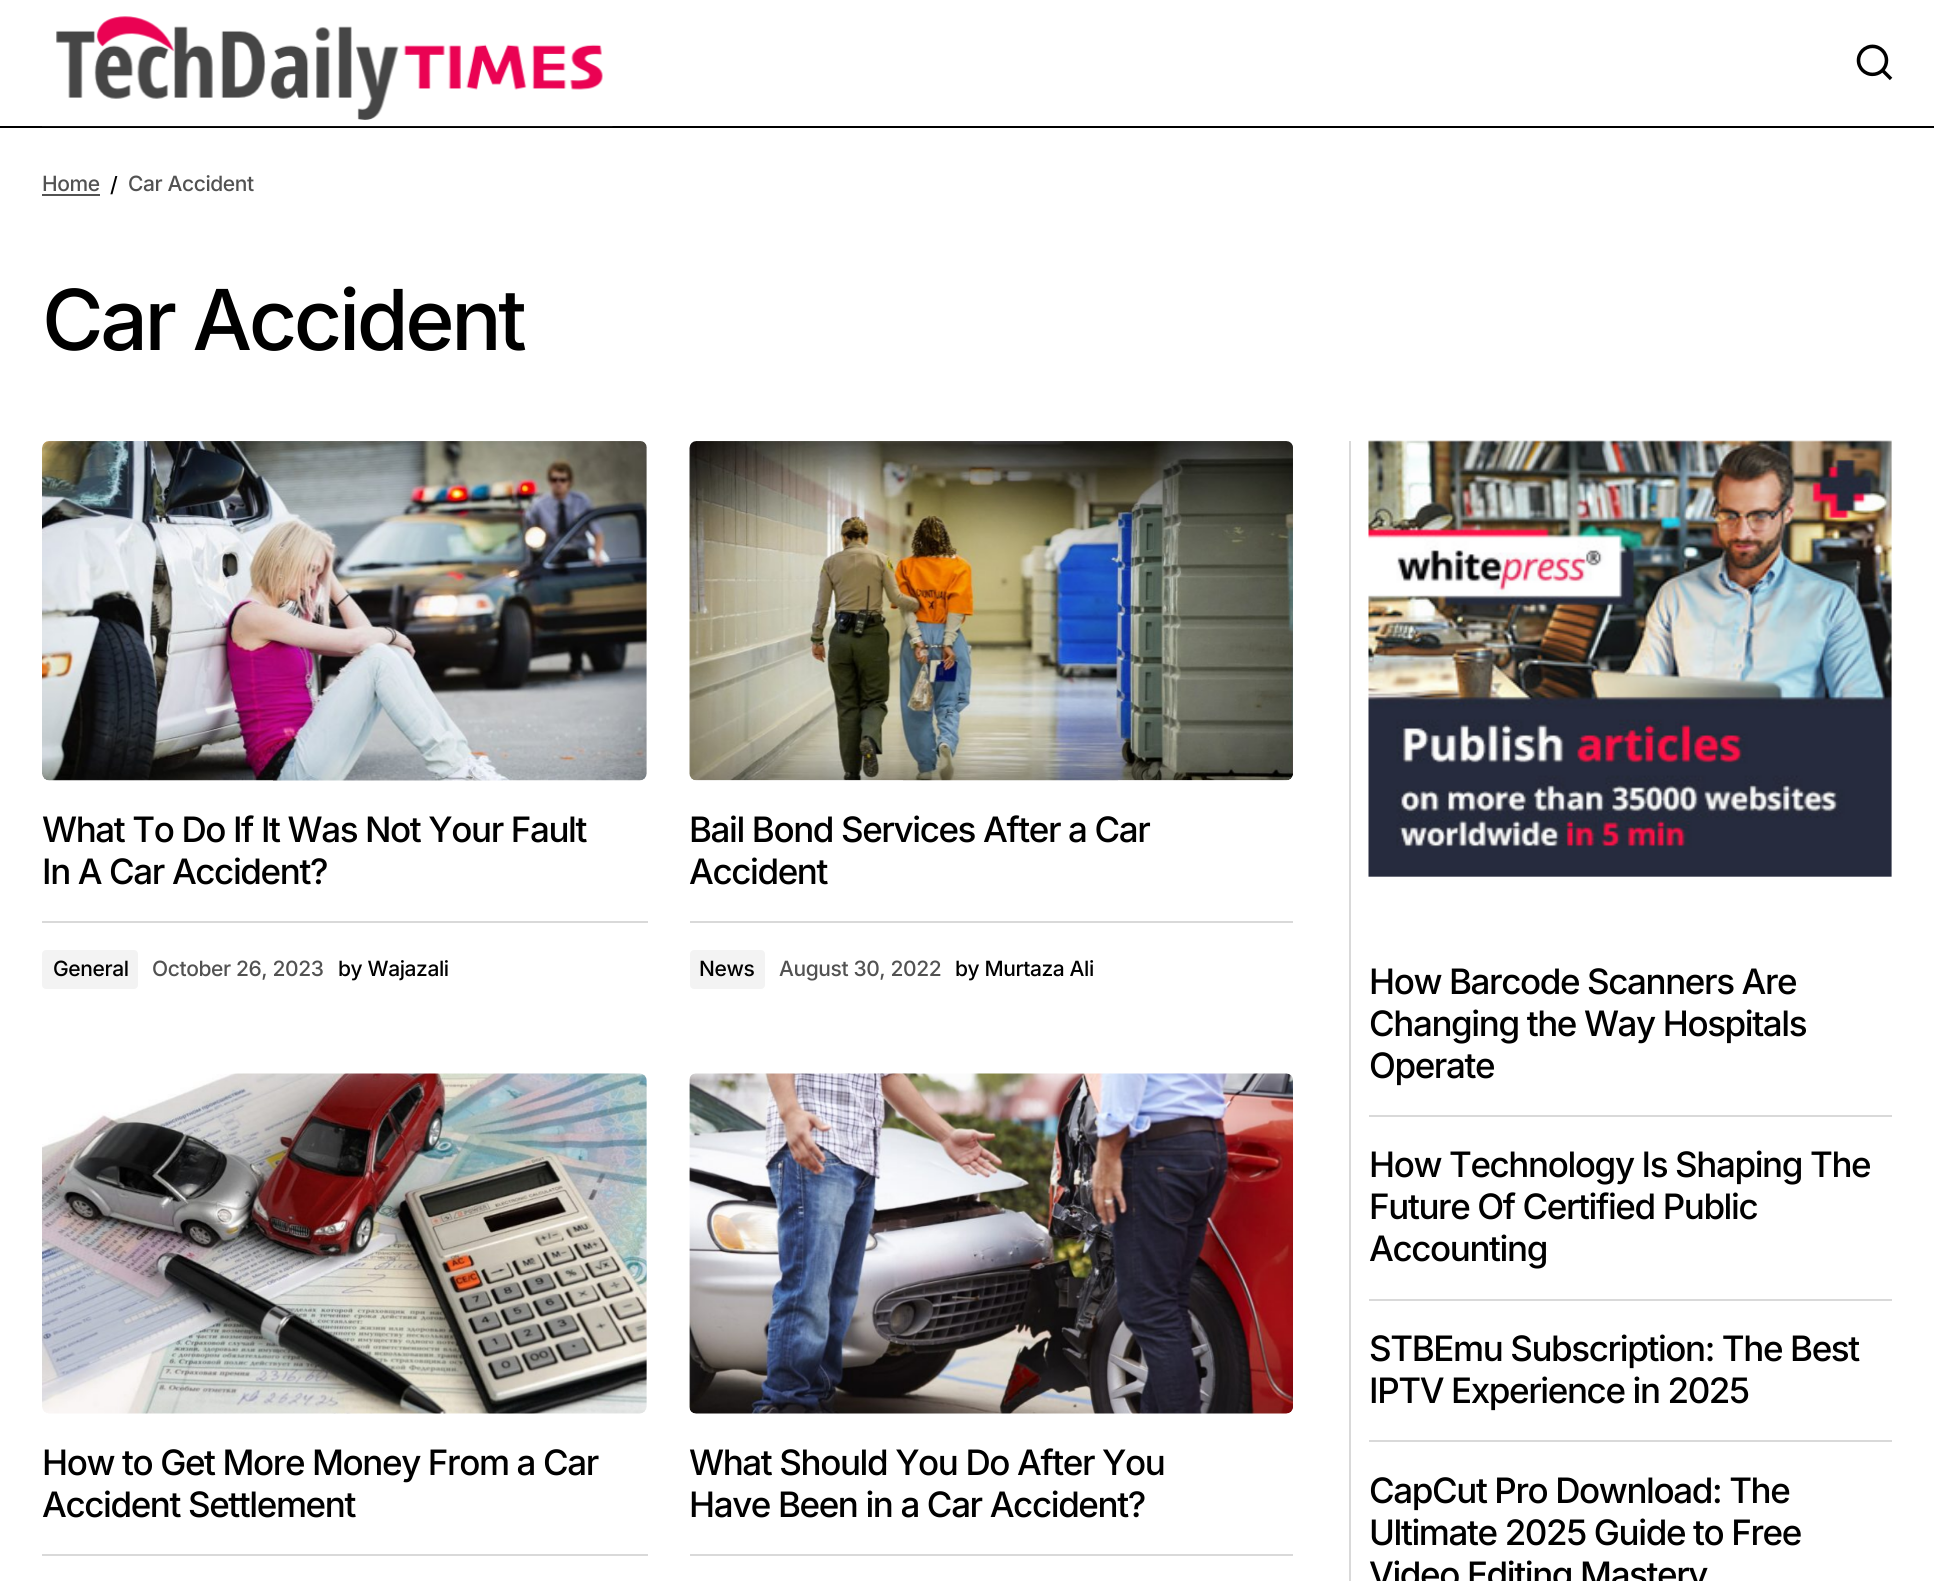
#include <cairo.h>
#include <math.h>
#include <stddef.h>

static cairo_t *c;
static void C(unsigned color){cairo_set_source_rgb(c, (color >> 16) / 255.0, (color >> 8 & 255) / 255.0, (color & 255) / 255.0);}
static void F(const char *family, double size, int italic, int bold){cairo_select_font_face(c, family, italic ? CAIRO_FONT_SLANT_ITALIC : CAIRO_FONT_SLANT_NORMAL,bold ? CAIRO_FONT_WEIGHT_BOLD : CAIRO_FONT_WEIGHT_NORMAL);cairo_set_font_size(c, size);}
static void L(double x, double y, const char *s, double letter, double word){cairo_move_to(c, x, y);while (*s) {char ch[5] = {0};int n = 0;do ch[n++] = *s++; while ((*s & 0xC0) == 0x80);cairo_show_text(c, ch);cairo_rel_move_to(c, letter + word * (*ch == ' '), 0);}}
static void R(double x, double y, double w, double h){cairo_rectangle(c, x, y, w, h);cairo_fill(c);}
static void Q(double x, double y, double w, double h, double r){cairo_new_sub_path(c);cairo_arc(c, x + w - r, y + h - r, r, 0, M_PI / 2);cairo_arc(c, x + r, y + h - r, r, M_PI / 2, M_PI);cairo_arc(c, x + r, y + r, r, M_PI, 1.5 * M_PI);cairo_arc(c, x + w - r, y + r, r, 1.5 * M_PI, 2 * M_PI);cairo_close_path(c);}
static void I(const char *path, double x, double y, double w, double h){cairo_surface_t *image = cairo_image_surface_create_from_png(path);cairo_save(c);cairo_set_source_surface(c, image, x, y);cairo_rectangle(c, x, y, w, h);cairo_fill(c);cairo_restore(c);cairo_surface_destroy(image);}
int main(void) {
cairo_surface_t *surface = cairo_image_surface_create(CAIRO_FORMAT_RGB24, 1960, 1581);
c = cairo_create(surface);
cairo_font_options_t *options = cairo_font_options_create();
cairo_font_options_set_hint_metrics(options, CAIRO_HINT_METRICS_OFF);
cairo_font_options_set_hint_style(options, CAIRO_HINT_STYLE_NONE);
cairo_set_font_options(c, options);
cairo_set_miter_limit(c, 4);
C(0xffffff);
cairo_paint(c);
C(0x000000);
R(0,126,1934,2);
I("1.png",42,16,571,111);
I("2.png",1856,44,37,37);
F("Inter Medium",21,0,0);
C(0x525252);
L(42,191,"Home",-.4,0);
R(42,194,58,2);
C(0x000000);
L(110,192,"/",-.4,0);
C(0x525252);
L(128,191,"Car Accident",-.4,0);
F("Inter Medium",84,0,0);
C(0x000000);
L(42,350,"Car Accident",-3.4,0);
I("3.png",42,441,605,340);
F("Inter Medium",35,0,0);
L(42,842,"What To Do If It Was Not Your Fault",-1.4,0);
L(42,884,"In A Car Accident?",-1.4,0);
C(0xd9d9d9);
R(42,921,606,2);
C(0xf3f3f3);
Q(42,950,96,39,4);
cairo_fill(c);
F("Inter Medium",21,0,0);
C(0x000000);
L(53,976,"General",-.4,0);
C(0x525252);
L(152,976,"October 26, 2023",-.4,0);
C(0x000000);
L(338,976,"by Wajazali",-.4,0);
I("4.png",689,441,604,340);
F("Inter Medium",35,0,0);
L(689,842,"Bail Bond Services After a Car",-1.4,0);
L(689,884,"Accident",-1.4,0);
C(0xd9d9d9);
R(690,921,603,2);
C(0xf3f3f3);
Q(690,950,75,39,4);
cairo_fill(c);
F("Inter Medium",21,0,0);
C(0x000000);
L(699,976,"News",-.4,0);
C(0x525252);
L(779,976,"August 30, 2022",-.4,0);
C(0x000000);
L(955,976,"by Murtaza Ali",-.4,0);
I("5.png",42,1073,605,341);
F("Inter Medium",35,0,0);
L(42,1475,"How to Get More Money From a Car",-1.4,0);
L(42,1517,"Accident Settlement",-1.4,0);
C(0xd9d9d9);
R(42,1554,606,2);
I("6.png",689,1073,604,341);
C(0x000000);
L(689,1475,"What Should You Do After You",-1.4,0);
L(689,1517,"Have Been in a Car Accident?",-1.4,0);
C(0xd9d9d9);
R(690,1554,603,2);
R(1349,441,2,1140);
I("7.png",1368,440,524,437);
R(1369,1115,523,2);
C(0x000000);
L(1369,994,"How Barcode Scanners Are",-1.4,0);
L(1369,1036,"Changing the Way Hospitals",-1.4,0);
L(1369,1078,"Operate",-1.4,0);
C(0xd9d9d9);
R(1369,1299,523,2);
C(0x000000);
L(1369,1177,"How Technology Is Shaping The",-1.4,0);
L(1369,1219,"Future Of Certified Public",-1.4,0);
L(1369,1261,"Accounting",-1.4,0);
C(0xd9d9d9);
R(1369,1440,523,2);
C(0x000000);
L(1369,1361,"STBEmu Subscription: The Best",-1.4,0);
L(1369,1403,"IPTV Experience in 2025",-1.4,0);
L(1369,1503,"CapCut Pro Download: The",-1.4,0);
L(1369,1545,"Ultimate 2025 Guide to Free",-1.4,0);
L(1369,1587,"Video Editing Mastery",-1.4,0);
cairo_surface_write_to_png(surface, "o.png");
cairo_font_options_destroy(options);
cairo_destroy(c);
cairo_surface_destroy(surface);
return 0;
}
